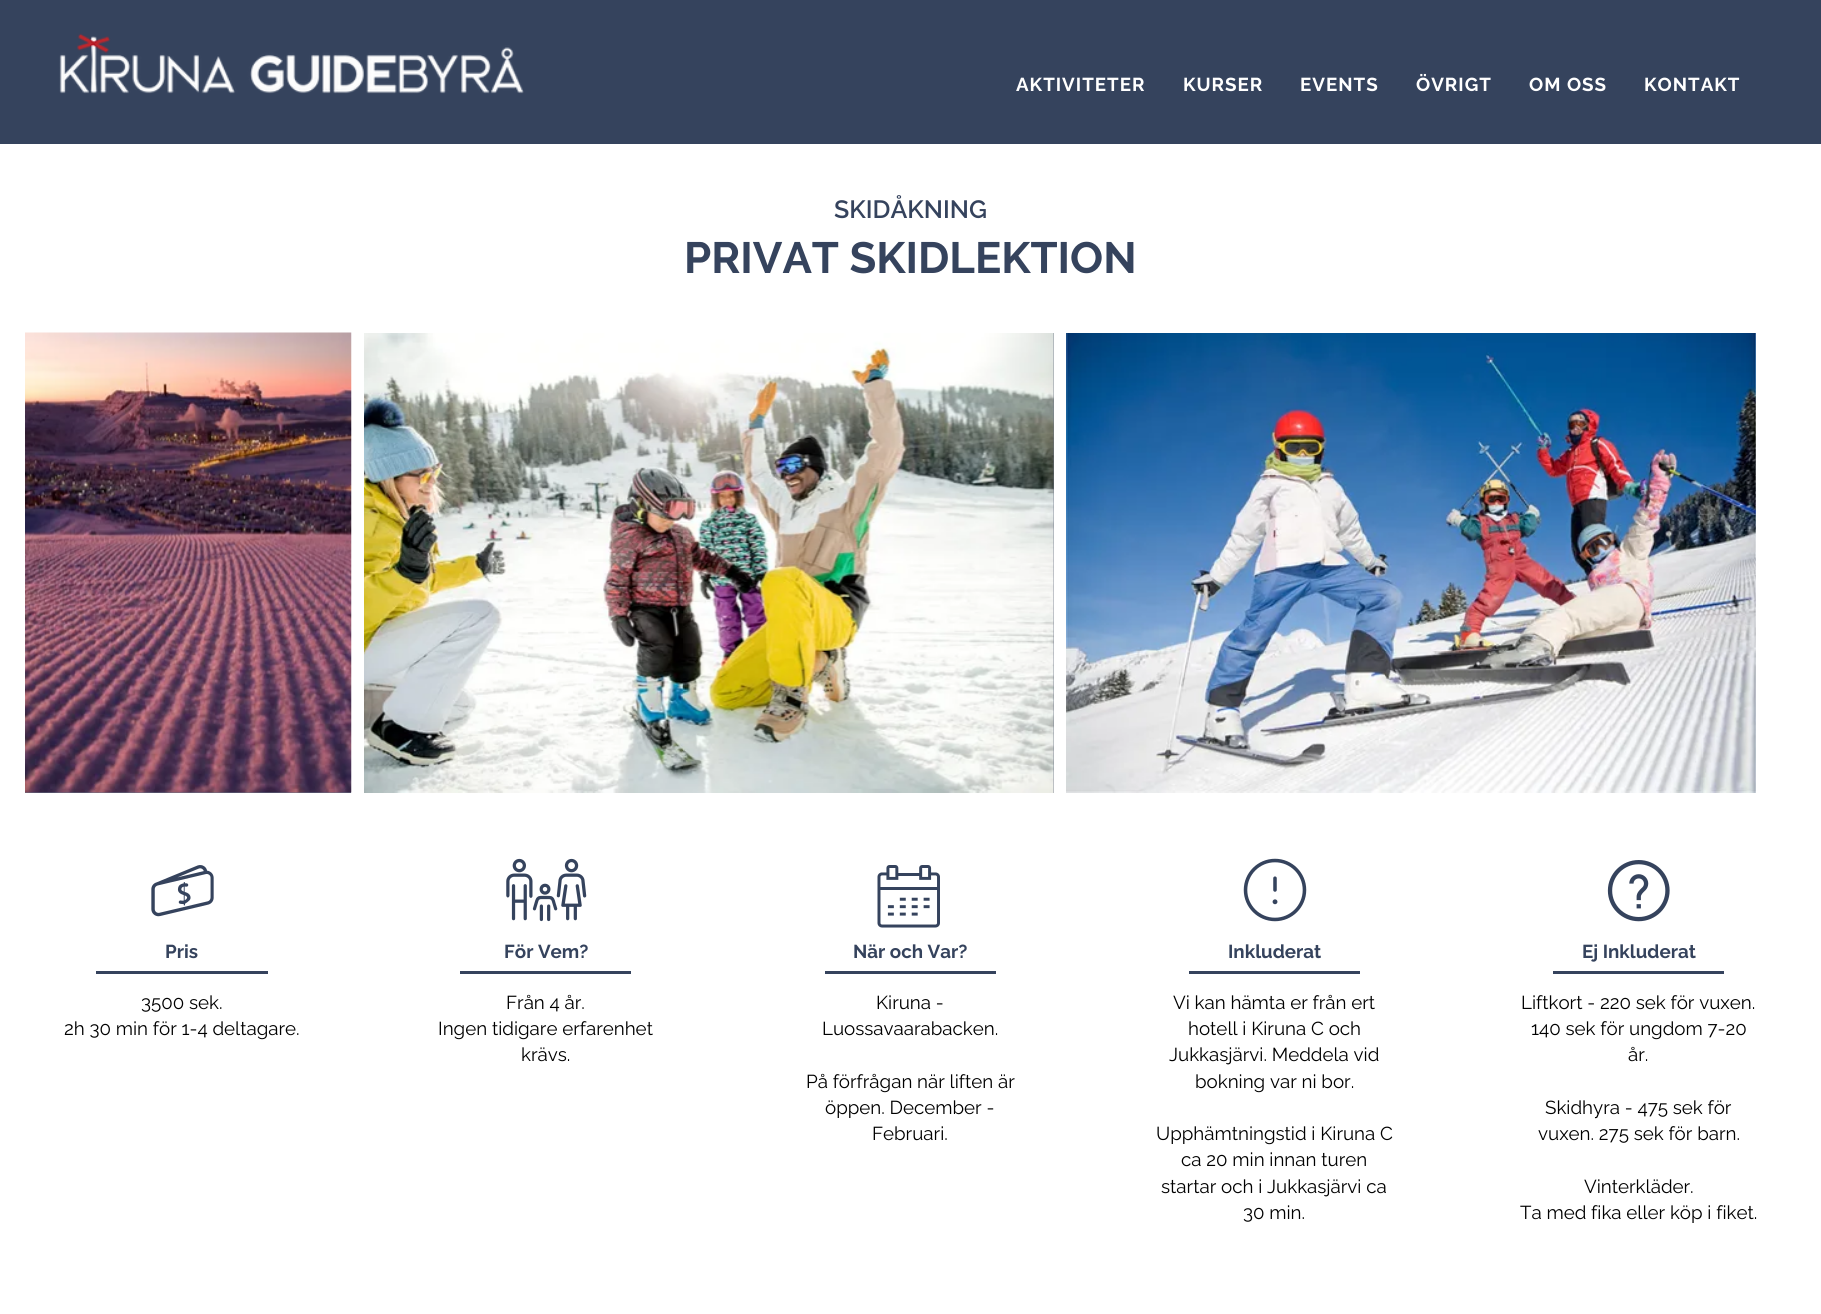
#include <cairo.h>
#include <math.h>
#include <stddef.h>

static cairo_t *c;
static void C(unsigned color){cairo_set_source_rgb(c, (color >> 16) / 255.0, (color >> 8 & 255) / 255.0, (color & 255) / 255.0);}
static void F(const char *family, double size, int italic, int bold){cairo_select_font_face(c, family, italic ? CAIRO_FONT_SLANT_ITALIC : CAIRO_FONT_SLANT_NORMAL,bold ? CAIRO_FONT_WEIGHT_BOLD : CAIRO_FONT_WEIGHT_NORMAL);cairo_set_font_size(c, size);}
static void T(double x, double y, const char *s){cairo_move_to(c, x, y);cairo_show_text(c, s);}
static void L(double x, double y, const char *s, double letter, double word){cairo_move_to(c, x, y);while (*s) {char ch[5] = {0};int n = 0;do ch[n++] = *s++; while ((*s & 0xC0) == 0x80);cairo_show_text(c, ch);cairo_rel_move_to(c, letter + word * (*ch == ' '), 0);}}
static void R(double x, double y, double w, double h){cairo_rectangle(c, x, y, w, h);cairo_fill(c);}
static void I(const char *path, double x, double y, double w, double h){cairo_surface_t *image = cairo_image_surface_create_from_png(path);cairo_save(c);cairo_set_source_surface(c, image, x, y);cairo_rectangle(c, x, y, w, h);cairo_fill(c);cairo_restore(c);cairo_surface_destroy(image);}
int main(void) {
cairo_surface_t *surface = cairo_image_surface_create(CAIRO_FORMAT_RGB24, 1821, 1314);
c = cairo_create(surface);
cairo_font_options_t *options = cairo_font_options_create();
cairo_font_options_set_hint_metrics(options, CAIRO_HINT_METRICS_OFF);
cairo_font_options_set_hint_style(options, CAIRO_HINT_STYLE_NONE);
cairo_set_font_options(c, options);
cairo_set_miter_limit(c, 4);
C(0xffffff);
cairo_paint(c);
C(0x35435d);
R(0,0,1821,144);
I("1.png",59,33,465,61);
F("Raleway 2",18.75,0,1);
C(0xffffff);
L(1016,91,"AKTIVITETER",1,0);
L(1183,91,"KURSER",1,0);
L(1300,91,"EVENTS",1,0);
L(1416,91,"ÖVRIGT",1,0);
L(1529,91,"OM OSS",1,0);
L(1644,91,"KONTAKT",1,0);
F("Raleway SemiBold",25,0,0);
C(0x35435d);
T(834,218,"SKIDÅKNING");
F("Raleway",43.75,0,1);
T(684,273,"PRIVAT SKIDLEKTION");
C(0x697386);
R(25,792,326,1);
I("2.png",25,332,327,461);
R(1053,333,1,460);
I("3.png",364,333,690,460);
I("4.png",1066,333,690,460);
I("5.png",151,865,63,52);
F("Raleway 2",18.75,0,1);
C(0x35435d);
T(165,958,"Pris");
R(96,971,172,3);
F("Raleway",18.75,0,0);
C(0x000000);
T(141,1009,"3500 sek.");
T(64,1035,"2h 30 min för 1-4 deltagare.");
I("6.png",506,858,81,64);
F("Raleway 2",18.75,0,1);
C(0x35435d);
T(504,958,"För Vem?");
R(460,971,171,3);
F("Raleway",18.75,0,0);
C(0x000000);
T(506,1009,"Från 4 år.");
T(438,1035,"Ingen tidigare erfarenhet");
T(521,1061,"krävs.");
I("7.png",877,865,63,63);
F("Raleway 2",18.75,0,1);
C(0x35435d);
T(853,958,"När och Var?");
R(825,971,171,3);
F("Raleway",18.75,0,0);
C(0x000000);
T(876,1009,"Kiruna -");
T(822,1035,"Luossavaarabacken.");
T(806,1088,"På förfrågan när liften är");
T(825,1114,"öppen. December -");
T(872,1140,"Februari.");
I("8.png",1243,858,64,64);
F("Raleway 2",18.75,0,1);
C(0x35435d);
T(1228,958,"Inkluderat");
R(1189,971,171,3);
F("Raleway",18.75,0,0);
C(0x000000);
T(1173,1009,"Vi kan hämta er från ert");
T(1188,1035,"hotell i Kiruna C och");
T(1169,1061,"Jukkasjärvi. Meddela vid");
T(1195,1088,"bokning var ni bor.");
T(1156,1140,"Upphämtningstid i Kiruna C");
T(1181,1166,"ca 20 min innan turen");
T(1161,1193,"startar och i Jukkasjärvi ca");
T(1243,1219,"30 min.");
I("9.png",1607,860,63,62);
F("Raleway 2",18.75,0,1);
C(0x35435d);
T(1582,958,"Ej Inkluderat");
R(1553,971,171,3);
F("Raleway",18.75,0,0);
C(0x000000);
T(1521,1009,"Liftkort - 220 sek för vuxen.");
T(1531,1035,"140 sek för ungdom 7-20");
T(1628,1061,"år.");
T(1545,1114,"Skidhyra - 475 sek för");
T(1538,1140,"vuxen. 275 sek för barn.");
T(1584,1193,"Vinterkläder.");
T(1520,1219,"Ta med fika eller köp i fiket.");
cairo_surface_write_to_png(surface, "o.png");
cairo_font_options_destroy(options);
cairo_destroy(c);
cairo_surface_destroy(surface);
return 0;
}
